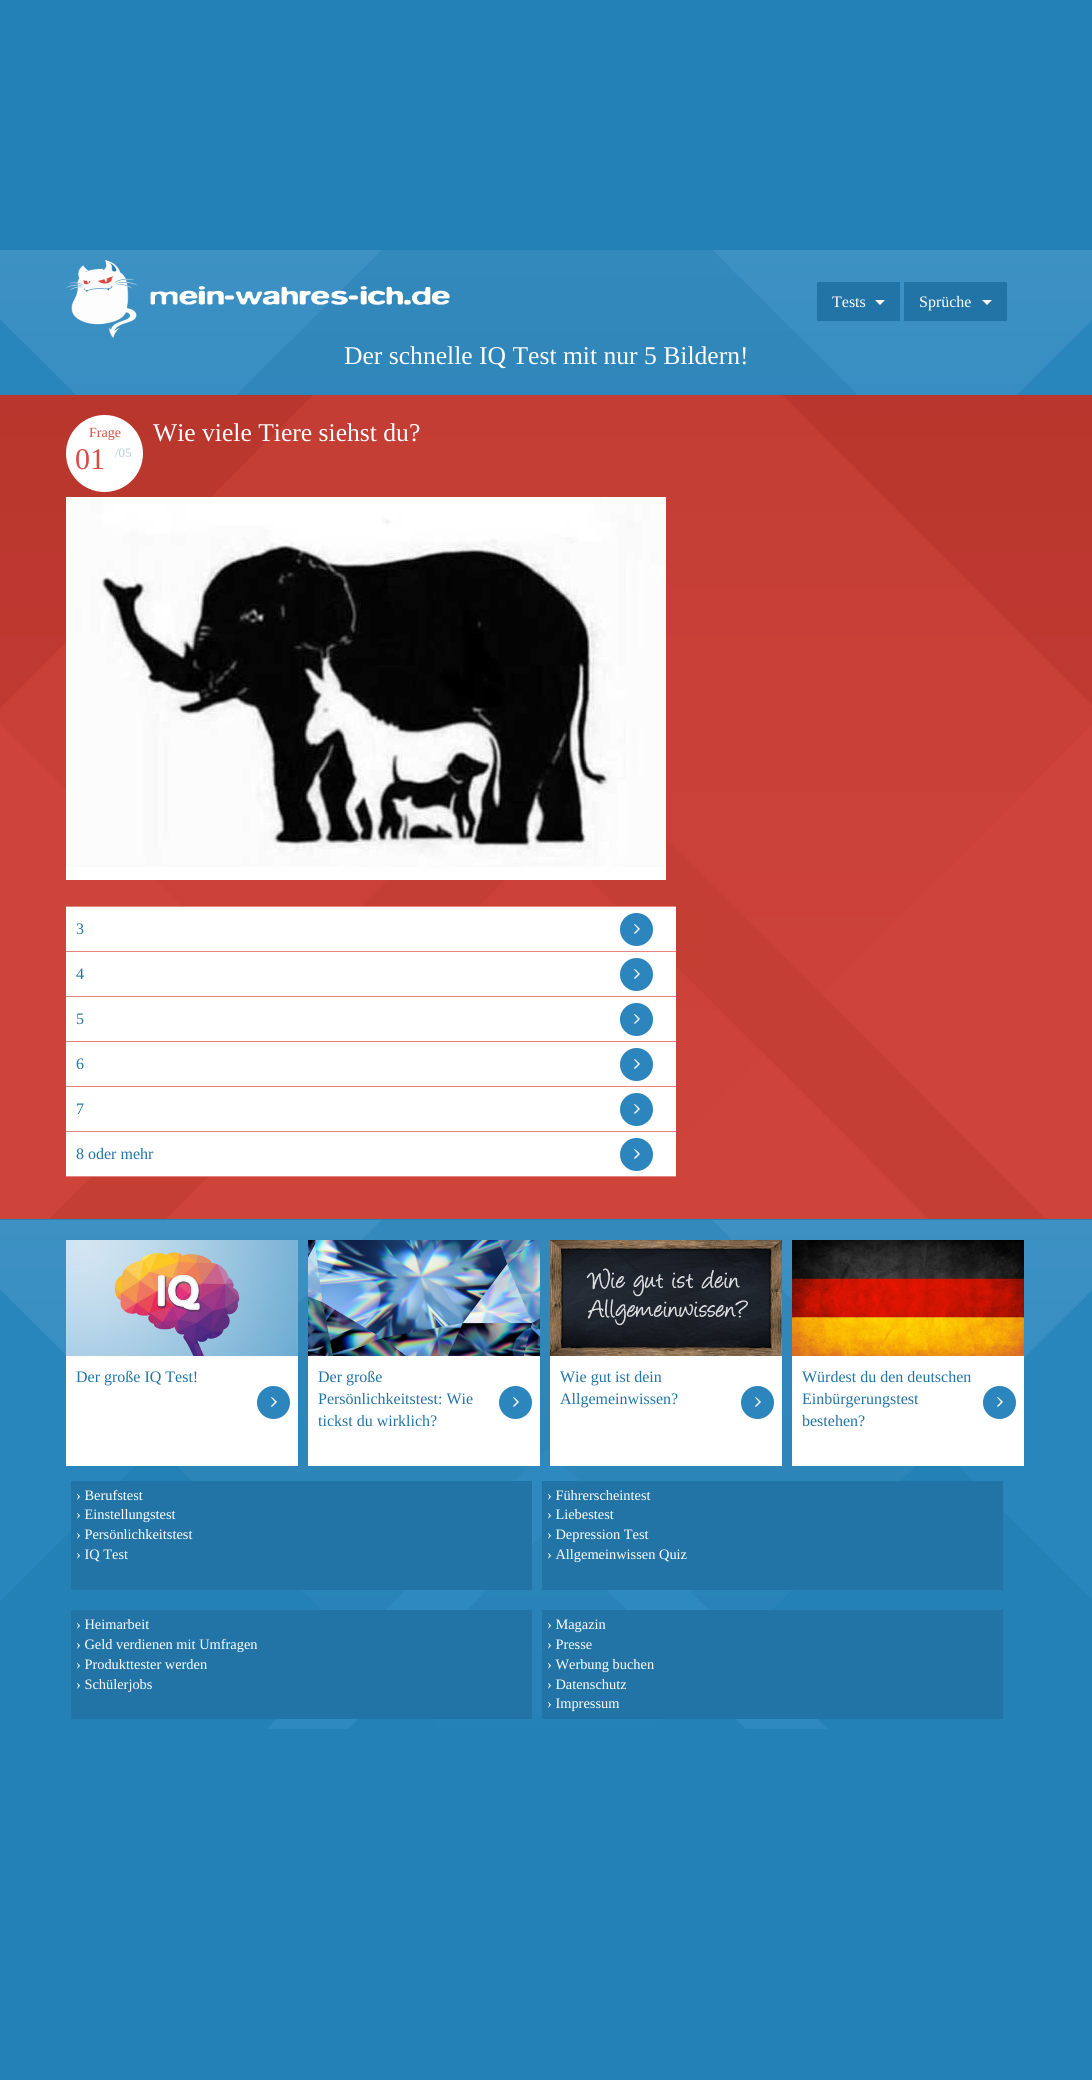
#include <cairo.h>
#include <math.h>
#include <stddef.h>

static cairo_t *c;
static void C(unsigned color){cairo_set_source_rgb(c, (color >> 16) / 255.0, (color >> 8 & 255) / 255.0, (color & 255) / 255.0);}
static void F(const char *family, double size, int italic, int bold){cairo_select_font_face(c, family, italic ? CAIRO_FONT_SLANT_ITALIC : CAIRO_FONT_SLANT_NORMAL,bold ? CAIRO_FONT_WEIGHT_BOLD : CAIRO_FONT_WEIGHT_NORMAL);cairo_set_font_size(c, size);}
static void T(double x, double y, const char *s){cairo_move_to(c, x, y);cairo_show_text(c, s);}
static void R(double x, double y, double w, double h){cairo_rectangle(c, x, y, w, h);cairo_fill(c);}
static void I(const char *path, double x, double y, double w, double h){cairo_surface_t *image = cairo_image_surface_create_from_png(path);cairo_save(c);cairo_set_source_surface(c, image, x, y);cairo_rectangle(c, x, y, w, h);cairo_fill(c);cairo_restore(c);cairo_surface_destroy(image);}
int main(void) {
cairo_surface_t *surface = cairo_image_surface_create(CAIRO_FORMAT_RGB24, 1092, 2080);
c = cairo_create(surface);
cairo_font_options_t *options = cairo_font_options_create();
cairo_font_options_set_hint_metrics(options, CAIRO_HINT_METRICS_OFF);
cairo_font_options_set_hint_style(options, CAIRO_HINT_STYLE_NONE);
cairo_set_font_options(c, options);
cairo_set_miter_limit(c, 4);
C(0x2481b6);
cairo_paint(c);
I("1.png",0,250,1092,145);
I("2.png",66,260,384,78);
C(0x2274a6);
R(817,282,83,39);
F("Liberation Serif",16,0,0);
C(0xffffff);
T(832,307,"Tests");
cairo_new_path(c);
cairo_move_to(c,875,300);
cairo_line_to(c,885,300);
cairo_line_to(c,880,305);
cairo_close_path(c);
cairo_fill(c);
C(0x2274a6);
R(904,282,103,39);
C(0xffffff);
T(919,307,"Sprüche");
cairo_new_path(c);
cairo_move_to(c,982,300);
cairo_line_to(c,992,300);
cairo_line_to(c,987,305);
cairo_close_path(c);
cairo_fill(c);
F("Liberation Serif",25.6,0,0);
T(344,364,"Der schnelle IQ Test mit nur 5 Bildern!");
I("3.png",0,395,1092,824);
cairo_arc(c,104.5,453.5,38.5,0,2 * M_PI);
cairo_fill(c);
F("Liberation Serif",14,0,0);
C(0xd94c43);
T(89,437,"Frage");
F("Liberation Serif",30,0,0);
T(75,469,"01");
F("Liberation Serif",13,0,0);
C(0xb5d0e0);
T(115,457,"/05");
F("Liberation Serif",25.6,0,0);
C(0xffffff);
T(153,441,"Wie viele Tiere siehst du?");
I("4.png",66,497,600,383);
C(0xe7837d);
R(66,906,610,1);
R(66,951,610,1);
C(0xffffff);
R(66,907,610,44);
C(0x2c85bc);
cairo_arc(c,636.5,929.5,16.5,0,2 * M_PI);
cairo_fill(c);
C(0xffffff);
cairo_set_fill_rule(c,CAIRO_FILL_RULE_EVEN_ODD);
cairo_new_path(c);
cairo_move_to(c,640,929);
cairo_line_to(c,636,925);
cairo_curve_to(c,635,924.5,634.5,923.5,634,924.5);
cairo_line_to(c,638,929);
cairo_line_to(c,634,933);
cairo_curve_to(c,634.5,934.5,635,933.5,636,933);
cairo_close_path(c);
cairo_fill(c);
F("Liberation Serif",16,0,0);
C(0x2274a6);
T(76,934,"3");
C(0xe7837d);
R(66,996,610,1);
C(0xffffff);
R(66,952,610,44);
C(0x2c85bc);
cairo_new_path(c);
cairo_arc(c,636.5,974.5,16.5,0,2 * M_PI);
cairo_fill(c);
C(0xffffff);
cairo_new_path(c);
cairo_move_to(c,640,974);
cairo_line_to(c,636,970);
cairo_curve_to(c,635,969.5,634.5,968.5,634,969.5);
cairo_line_to(c,638,974);
cairo_line_to(c,634,978);
cairo_curve_to(c,634.5,979.5,635,978.5,636,978);
cairo_close_path(c);
cairo_fill(c);
C(0x2274a6);
T(76,979,"4");
C(0xe7837d);
R(66,1041,610,1);
C(0xffffff);
R(66,997,610,44);
C(0x2c85bc);
cairo_new_path(c);
cairo_arc(c,636.5,1019.5,16.5,0,2 * M_PI);
cairo_fill(c);
C(0xffffff);
cairo_new_path(c);
cairo_move_to(c,640,1019);
cairo_line_to(c,636,1015);
cairo_curve_to(c,635,1014.5,634.5,1013.5,634,1014.5);
cairo_line_to(c,638,1019);
cairo_line_to(c,634,1023);
cairo_curve_to(c,634.5,1024.5,635,1023.5,636,1023);
cairo_close_path(c);
cairo_fill(c);
C(0x2274a6);
T(76,1024,"5");
C(0xe7837d);
R(66,1086,610,1);
C(0xffffff);
R(66,1042,610,44);
C(0x2c85bc);
cairo_new_path(c);
cairo_arc(c,636.5,1064.5,16.5,0,2 * M_PI);
cairo_fill(c);
C(0xffffff);
cairo_new_path(c);
cairo_move_to(c,640,1064);
cairo_line_to(c,636,1060);
cairo_curve_to(c,635,1059.5,634.5,1058.5,634,1059.5);
cairo_line_to(c,638,1064);
cairo_line_to(c,634,1068);
cairo_curve_to(c,634.5,1069.5,635,1068.5,636,1068);
cairo_close_path(c);
cairo_fill(c);
C(0x2274a6);
T(76,1069,"6");
C(0xe7837d);
R(66,1131,610,1);
C(0xffffff);
R(66,1087,610,44);
C(0x2c85bc);
cairo_new_path(c);
cairo_arc(c,636.5,1109.5,16.5,0,2 * M_PI);
cairo_fill(c);
C(0xffffff);
cairo_new_path(c);
cairo_move_to(c,640,1109);
cairo_line_to(c,636,1105);
cairo_curve_to(c,635,1104.5,634.5,1103.5,634,1104.5);
cairo_line_to(c,638,1109);
cairo_line_to(c,634,1113);
cairo_curve_to(c,634.5,1114.5,635,1113.5,636,1113);
cairo_close_path(c);
cairo_fill(c);
C(0x2274a6);
T(76,1114,"7");
C(0xe7837d);
R(66,1176,610,1);
C(0xffffff);
R(66,1132,610,44);
C(0x2c85bc);
cairo_new_path(c);
cairo_arc(c,636.5,1154.5,16.5,0,2 * M_PI);
cairo_fill(c);
C(0xffffff);
cairo_new_path(c);
cairo_move_to(c,640,1154);
cairo_line_to(c,636,1150);
cairo_curve_to(c,635,1149.5,634.5,1148.5,634,1149.5);
cairo_line_to(c,638,1154);
cairo_line_to(c,634,1158);
cairo_curve_to(c,634.5,1159.5,635,1158.5,636,1158);
cairo_close_path(c);
cairo_fill(c);
C(0x2274a6);
T(76,1159,"8 oder mehr");
I("5.png",0,1220,1092,509);
I("6.png",66,1240,232,116);
C(0xffffff);
R(66,1356,232,110);
C(0x2c85bc);
cairo_arc(c,273.5,1402.5,16.5,0,2 * M_PI);
cairo_fill(c);
C(0xffffff);
cairo_new_path(c);
cairo_move_to(c,277,1402);
cairo_line_to(c,273,1398);
cairo_curve_to(c,272,1397.5,271.5,1396.5,271,1397.5);
cairo_line_to(c,275,1402);
cairo_line_to(c,271,1406);
cairo_curve_to(c,271.5,1407.5,272,1406.5,273,1406);
cairo_close_path(c);
cairo_fill(c);
C(0x2274a6);
T(76,1382,"Der große IQ Test!");
I("7.png",308,1240,232,116);
C(0xffffff);
R(308,1356,232,110);
C(0x2c85bc);
cairo_arc(c,515.5,1402.5,16.5,0,2 * M_PI);
cairo_fill(c);
C(0xffffff);
cairo_new_path(c);
cairo_move_to(c,519,1402);
cairo_line_to(c,515,1398);
cairo_curve_to(c,514,1397.5,513.5,1396.5,513,1397.5);
cairo_line_to(c,517,1402);
cairo_line_to(c,513,1406);
cairo_curve_to(c,513.5,1407.5,514,1406.5,515,1406);
cairo_close_path(c);
cairo_fill(c);
C(0x2274a6);
T(318,1382,"Der große");
T(318,1404,"Persönlichkeitstest: Wie");
T(318,1426,"tickst du wirklich?");
I("8.png",550,1240,232,116);
C(0xffffff);
R(550,1356,232,110);
C(0x2c85bc);
cairo_arc(c,757.5,1402.5,16.5,0,2 * M_PI);
cairo_fill(c);
C(0xffffff);
cairo_new_path(c);
cairo_move_to(c,761,1402);
cairo_line_to(c,757,1398);
cairo_curve_to(c,756,1397.5,755.5,1396.5,755,1397.5);
cairo_line_to(c,759,1402);
cairo_line_to(c,755,1406);
cairo_curve_to(c,755.5,1407.5,756,1406.5,757,1406);
cairo_close_path(c);
cairo_fill(c);
C(0x2274a6);
T(560,1382,"Wie gut ist dein");
T(560,1404,"Allgemeinwissen?");
I("9.png",792,1240,232,116);
C(0xffffff);
R(792,1356,232,110);
C(0x2c85bc);
cairo_arc(c,999.5,1402.5,16.5,0,2 * M_PI);
cairo_fill(c);
C(0xffffff);
cairo_new_path(c);
cairo_move_to(c,1003,1402);
cairo_line_to(c,999,1398);
cairo_curve_to(c,998,1397.5,997.5,1396.5,997,1397.5);
cairo_line_to(c,1001,1402);
cairo_line_to(c,997,1406);
cairo_curve_to(c,997.5,1407.5,998,1406.5,999,1406);
cairo_close_path(c);
cairo_fill(c);
C(0x2274a6);
T(802,1382,"Würdest du den deutschen");
T(802,1404,"Einbürgerungstest");
T(802,1426,"bestehen?");
R(71,1481,461,109);
F("Liberation Serif",14.4,0,0);
C(0xffffff);
T(76,1500,"› Berufstest");
T(76,1519,"› Einstellungstest");
T(76,1539,"› Persönlichkeitstest");
T(76,1559,"› IQ Test");
C(0x2274a6);
R(542,1481,461,109);
C(0xffffff);
T(547,1500,"› Führerscheintest");
T(547,1519,"› Liebestest");
T(547,1539,"› Depression Test");
T(547,1559,"› Allgemeinwissen Quiz");
C(0x2274a6);
R(71,1610,461,109);
C(0xffffff);
T(76,1629,"› Heimarbeit");
T(76,1649,"› Geld verdienen mit Umfragen");
T(76,1669,"› Produkttester werden");
T(76,1689,"› Schülerjobs");
C(0x2274a6);
R(542,1610,461,109);
C(0xffffff);
T(547,1629,"› Magazin");
T(547,1649,"› Presse");
T(547,1669,"› Werbung buchen");
T(547,1689,"› Datenschutz");
T(547,1708,"› Impressum");
cairo_surface_write_to_png(surface, "o.png");
cairo_font_options_destroy(options);
cairo_destroy(c);
cairo_surface_destroy(surface);
return 0;
}
